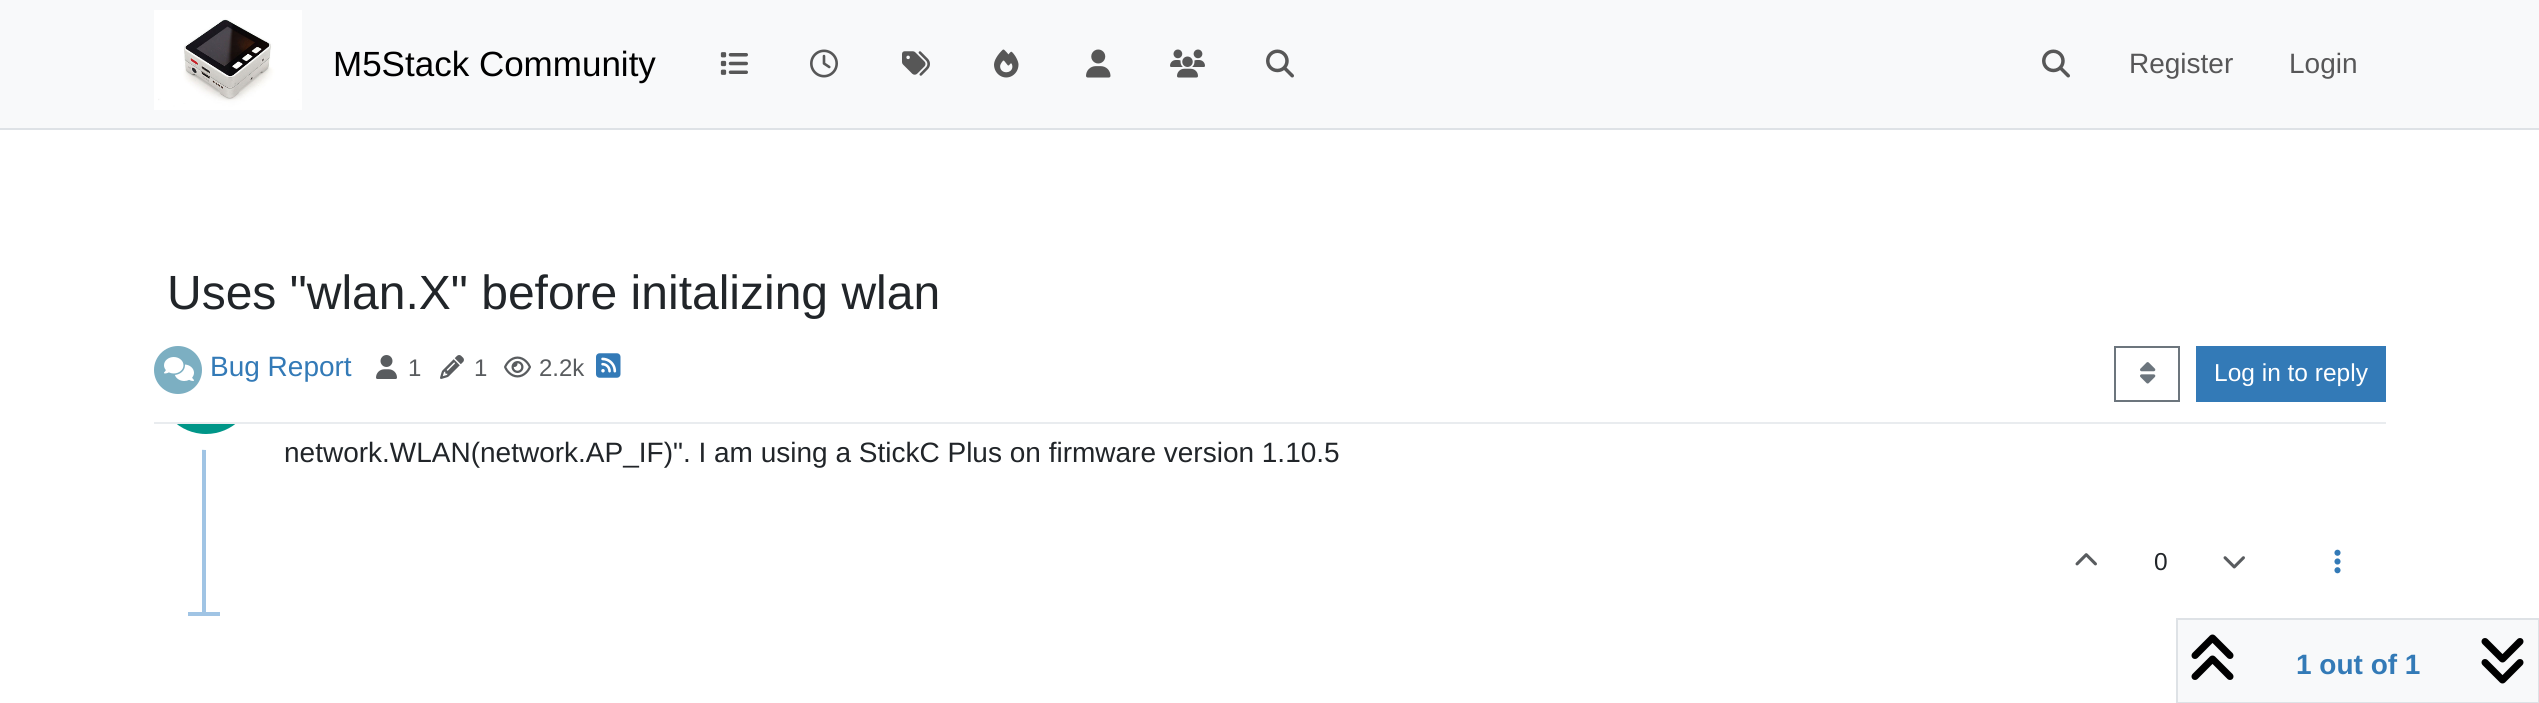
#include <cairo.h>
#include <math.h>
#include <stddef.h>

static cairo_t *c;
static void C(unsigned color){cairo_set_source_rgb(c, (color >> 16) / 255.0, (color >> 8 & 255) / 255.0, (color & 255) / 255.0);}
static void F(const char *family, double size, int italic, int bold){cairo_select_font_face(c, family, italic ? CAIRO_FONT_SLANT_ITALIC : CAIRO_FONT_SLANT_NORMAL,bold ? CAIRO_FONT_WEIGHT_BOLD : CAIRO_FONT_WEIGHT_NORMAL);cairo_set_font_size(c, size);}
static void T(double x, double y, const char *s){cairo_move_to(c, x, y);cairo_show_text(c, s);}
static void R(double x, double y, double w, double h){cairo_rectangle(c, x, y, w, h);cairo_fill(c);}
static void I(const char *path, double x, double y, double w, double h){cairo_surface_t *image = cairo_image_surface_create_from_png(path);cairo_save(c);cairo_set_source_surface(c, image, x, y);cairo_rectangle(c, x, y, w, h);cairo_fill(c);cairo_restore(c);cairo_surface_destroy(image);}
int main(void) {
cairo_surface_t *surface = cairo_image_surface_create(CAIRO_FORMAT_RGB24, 2539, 703);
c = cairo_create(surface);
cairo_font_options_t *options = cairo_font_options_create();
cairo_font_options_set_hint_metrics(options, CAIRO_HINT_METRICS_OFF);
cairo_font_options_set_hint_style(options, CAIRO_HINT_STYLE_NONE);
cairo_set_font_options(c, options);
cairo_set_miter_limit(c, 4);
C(0xffffff);
cairo_paint(c);
C(0xf8f9fa);
R(0,0,2539,128);
C(0xdee2e6);
R(0,128,2539,2);
I("1.png",154,10,148,100);
F("Liberation Sans",35,0,0);
C(0x000000);
T(333,76,"M5Stack Community");
I("2.png",720,52,28,23);
I("3.png",810,49,28,29);
I("4.png",902,51,28,25);
I("5.png",994,49,25,29);
I("6.png",1086,49,25,29);
I("7.png",1170,49,35,29);
I("8.png",1266,49,28,29);
I("8.png",2042,49,28,29);
F("Liberation Sans",28,0,0);
C(0x575758);
T(2129,73,"Register");
T(2289,73,"Login");
C(0xa0c4e4);
R(202,433,4,183);
cairo_new_path(c);
cairo_arc(c,206,386,56,0,2 * M_PI);
C(0xffffff);
cairo_set_line_width(c,16);
cairo_stroke(c);
C(0x009688);
cairo_arc(c,206,386,48,0,2 * M_PI);
cairo_fill(c);
C(0xffffff);
R(158,338,96,84);
F("Liberation Sans",48,0,0);
C(0x212529);
T(167,309,"Uses \"wlan.X\" before initalizing wlan");
C(0xe9ecef);
R(154,422,2232,2);
C(0x7cafc2);
cairo_new_path(c);
cairo_arc(c,178,370,24,0,2 * M_PI);
cairo_fill(c);
I("9.png",164,357,30,24);
F("Liberation Sans",28,0,0);
C(0x337ab7);
T(210,376,"Bug Report");
I("10.png",376,355,21,24);
F("Liberation Sans",24,0,0);
C(0x595c5f);
T(408,376,"1");
I("11.png",440,355,24,24);
T(474,376,"1");
I("12.png",504,356,27,22);
T(539,376,"2.2k");
I("13.png",596,353,25,25);
cairo_rectangle(c,2115,347,64,54);
C(0x6c757d);
cairo_set_line_width(c,2);
cairo_stroke(c);
I("14.png",2140,362,16,22);
C(0x337ab7);
R(2196,346,190,56);
F("Liberation Sans",24.5,0,0);
C(0xffffff);
T(2214,381,"Log in to reply");
F("Liberation Sans",28,0,0);
C(0x212529);
T(284,462,"network.WLAN(network.AP_IF)\". I am using a StickC Plus on firmware version 1.10.5");
I("15.png",2075,553,22,13);
F("Liberation Sans",24.5,0,0);
T(2154,570,"0");
I("16.png",2223,556,22,13);
I("17.png",2334,549,7,25);
C(0xa0c4e4);
R(188,612,32,4);
C(0xf8f9fa);
cairo_rectangle(c,2177,619,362,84);
cairo_fill_preserve(c);
C(0xdee2e6);
cairo_stroke(c);
I("18.png",2191,634,43,46);
F("Liberation Sans",28,0,1);
C(0x337ab7);
T(2296,674,"1 out of 1");
I("19.png",2481,638,43,46);
cairo_surface_write_to_png(surface, "o.png");
cairo_font_options_destroy(options);
cairo_destroy(c);
cairo_surface_destroy(surface);
return 0;
}
